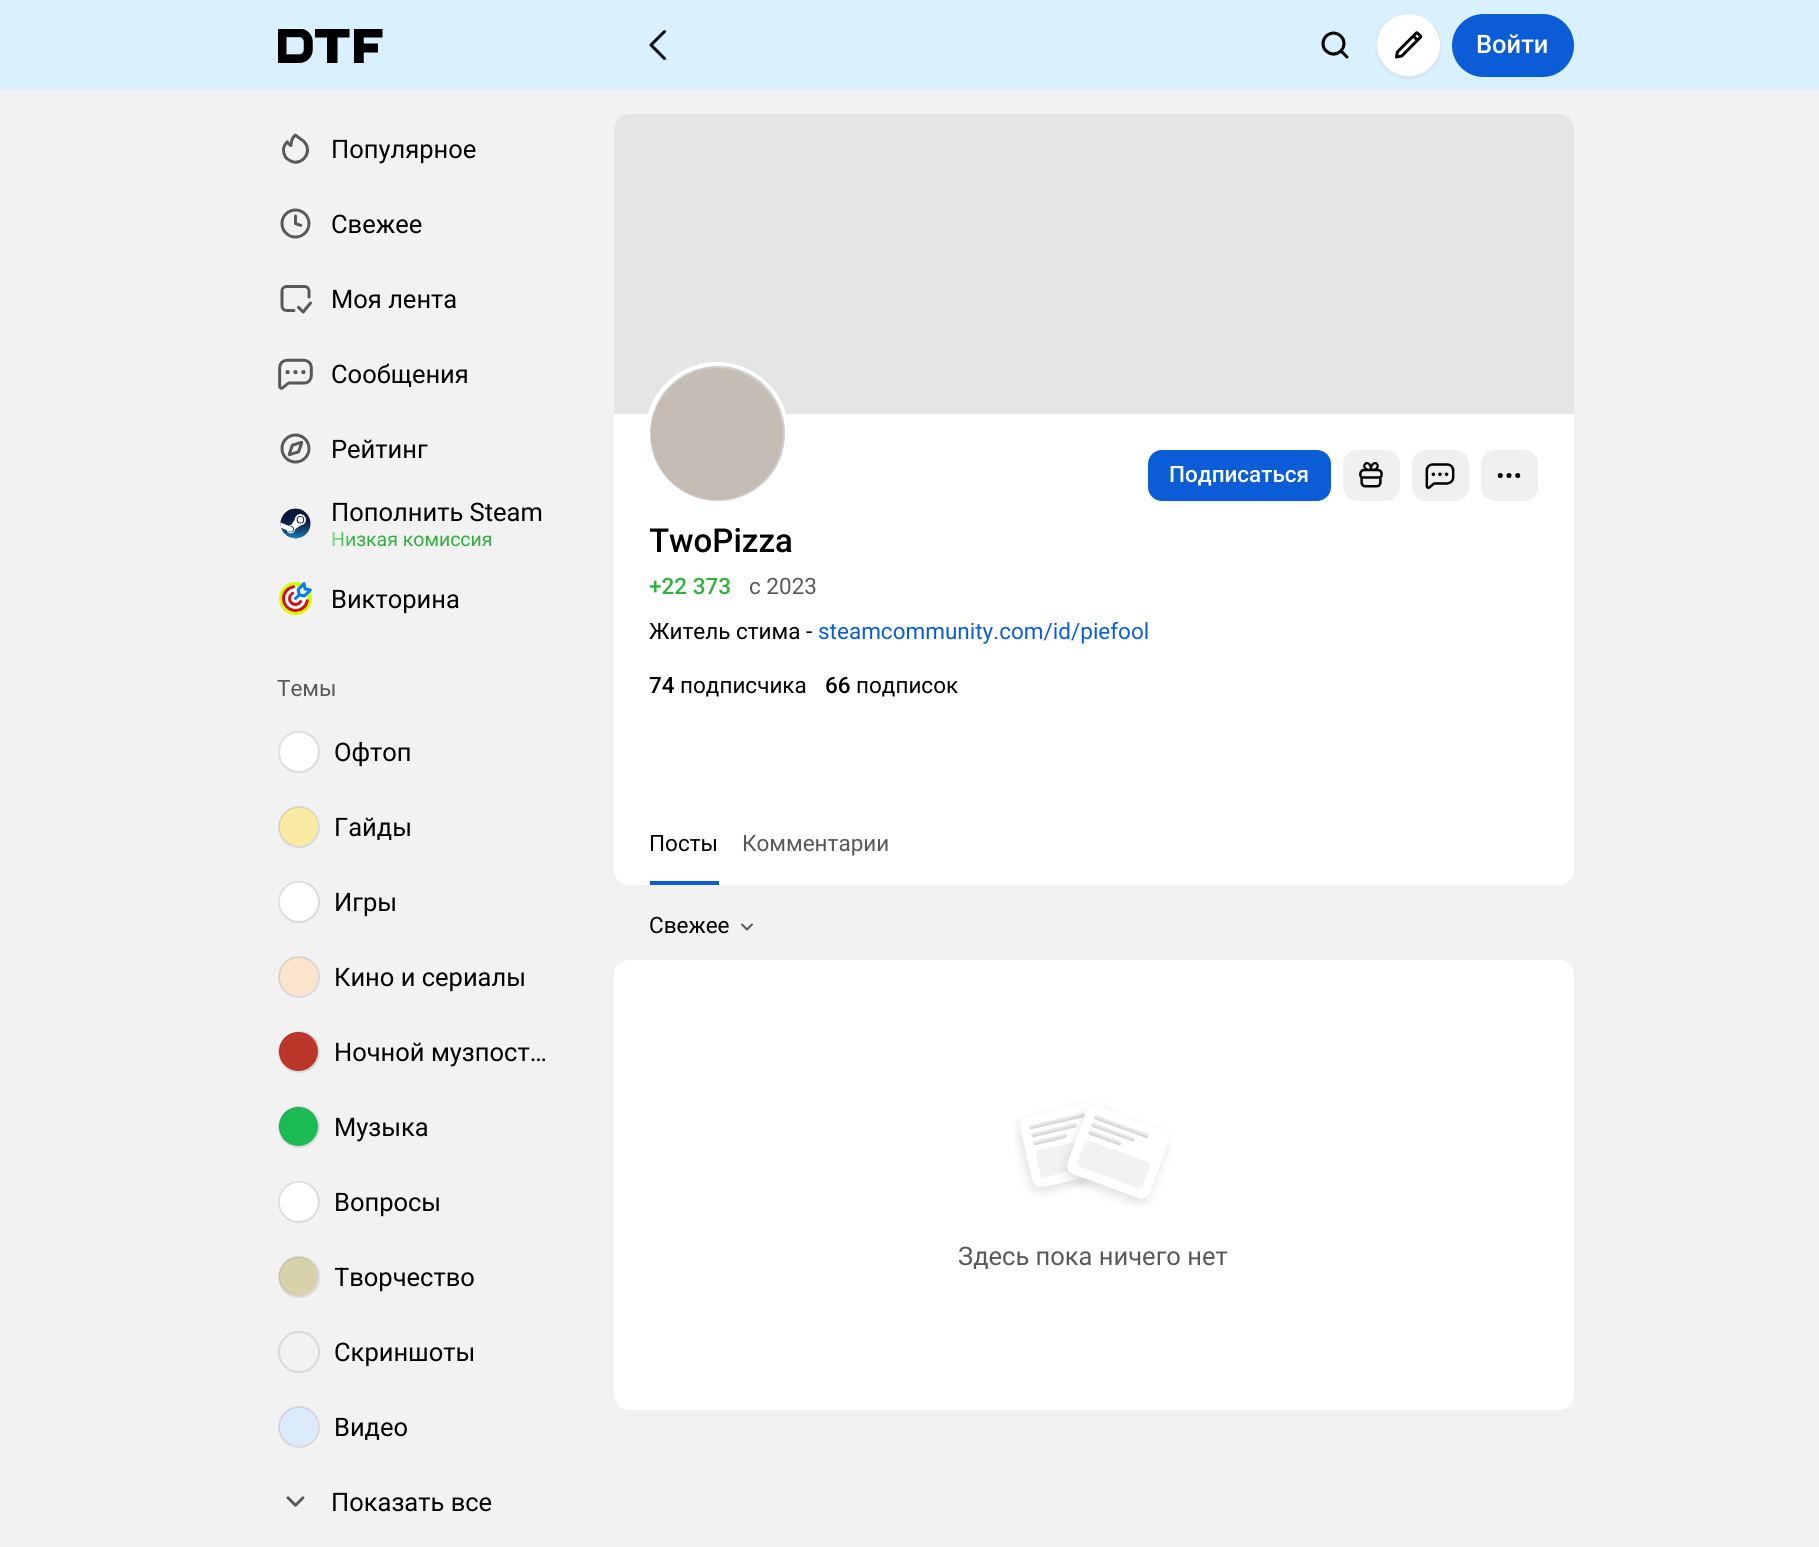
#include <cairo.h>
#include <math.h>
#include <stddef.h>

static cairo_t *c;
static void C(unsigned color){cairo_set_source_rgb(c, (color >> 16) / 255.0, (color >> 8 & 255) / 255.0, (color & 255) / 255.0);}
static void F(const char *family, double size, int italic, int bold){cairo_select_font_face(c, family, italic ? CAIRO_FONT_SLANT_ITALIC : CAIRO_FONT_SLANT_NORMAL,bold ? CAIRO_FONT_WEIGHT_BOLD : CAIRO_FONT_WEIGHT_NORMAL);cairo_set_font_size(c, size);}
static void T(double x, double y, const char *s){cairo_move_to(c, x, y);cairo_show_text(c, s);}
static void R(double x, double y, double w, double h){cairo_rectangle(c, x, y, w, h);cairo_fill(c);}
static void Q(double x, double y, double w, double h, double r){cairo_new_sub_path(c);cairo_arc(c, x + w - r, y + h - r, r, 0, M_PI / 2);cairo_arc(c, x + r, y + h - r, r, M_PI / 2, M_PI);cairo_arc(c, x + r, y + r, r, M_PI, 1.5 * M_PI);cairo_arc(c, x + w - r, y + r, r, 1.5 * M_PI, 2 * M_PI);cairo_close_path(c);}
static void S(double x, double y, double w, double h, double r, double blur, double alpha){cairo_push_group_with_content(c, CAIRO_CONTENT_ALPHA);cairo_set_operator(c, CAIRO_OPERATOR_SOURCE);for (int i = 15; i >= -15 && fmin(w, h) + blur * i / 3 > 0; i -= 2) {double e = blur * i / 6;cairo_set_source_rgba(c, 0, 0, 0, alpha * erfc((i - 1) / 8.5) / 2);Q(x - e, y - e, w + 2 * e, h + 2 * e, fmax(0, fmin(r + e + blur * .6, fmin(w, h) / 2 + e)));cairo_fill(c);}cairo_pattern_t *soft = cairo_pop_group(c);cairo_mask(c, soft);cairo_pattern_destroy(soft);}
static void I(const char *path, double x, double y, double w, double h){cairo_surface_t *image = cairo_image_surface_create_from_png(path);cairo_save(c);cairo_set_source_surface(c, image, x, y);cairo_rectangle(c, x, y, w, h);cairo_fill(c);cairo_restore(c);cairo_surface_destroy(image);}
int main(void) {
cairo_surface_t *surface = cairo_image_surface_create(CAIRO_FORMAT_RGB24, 1819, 1547);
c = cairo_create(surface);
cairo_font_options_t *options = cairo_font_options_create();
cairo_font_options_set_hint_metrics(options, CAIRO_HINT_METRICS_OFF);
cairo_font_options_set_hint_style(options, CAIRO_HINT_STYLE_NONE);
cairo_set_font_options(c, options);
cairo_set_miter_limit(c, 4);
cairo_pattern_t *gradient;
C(0xf2f2f2);
cairo_paint(c);
C(0xd9f0ff);
R(0,0,1819,90);
I("1.png",278,29,105,34);
I("2.png",649,30,18,30);
I("3.png",1321,31,28,28);
C(0x000000);
S(1377,15,63,63,31.5,1.5,.1);
C(0xffffff);
cairo_arc(c,1408.5,45.5,31.5,0,2 * M_PI);
cairo_fill(c);
cairo_set_source_rgba(c,0,0,0,0.06);
cairo_new_path(c);
cairo_move_to(c,1377,45);
cairo_curve_to(c,1377,51,1379,58,1382,63);
cairo_curve_to(c,1400,89,1441,76,1440,45);
cairo_curve_to(c,1440,61,1426,75,1408,75);
cairo_curve_to(c,1391,75,1377,61,1377,45);
cairo_close_path(c);
cairo_fill(c);
I("4.png",1395,31,28,28);
C(0x0b5dd7);
Q(1452,14,122,63,31.5);
cairo_fill(c);
F("Roboto Medium",25.5,0,0);
C(0xffffff);
T(1476,53,"Войти");
I("5.png",282,133,27,31);
F("Roboto",25.5,0,0);
C(0x000000);
T(331,158,"Популярное");
I("6.png",280,208,31,31);
T(331,233,"Свежее");
I("7.png",280,285,32,29);
T(331,308,"Моя лента");
I("8.png",278,358,35,32);
T(331,383,"Сообщения");
I("9.png",280,433,31,31);
T(331,458,"Рейтинг");
I("10.png",280,508,31,31);
T(331,521,"Пополнить Steam");
F("Roboto",19.5,0,0);
gradient = cairo_pattern_create_linear(301,540,573,540);
cairo_pattern_add_color_stop_rgba(gradient,0,0.188,0.69,0.239,1);
cairo_pattern_add_color_stop_rgba(gradient,.1,0.416,0.918,0.467,1);
cairo_pattern_add_color_stop_rgba(gradient,.2,0.188,0.69,0.239,1);
cairo_set_source(c,gradient);
cairo_pattern_destroy(gradient);
T(331,546,"Низкая комиссия");
I("11.png",279,582,33,33);
F("Roboto",25.5,0,0);
C(0x000000);
T(331,608,"Викторина");
F("Roboto",22.5,0,0);
C(0x595959);
T(277,696,"Темы");
C(0xffffff);
cairo_new_path(c);
cairo_arc(c,298.5,751.5,19.5,0,2 * M_PI);
cairo_fill(c);
cairo_arc(c,299,752,20,0,2 * M_PI);
cairo_set_source_rgba(c,0,0,0,0.1);
cairo_stroke(c);
F("Roboto",25.5,0,0);
C(0x000000);
T(334,761,"Офтоп");
C(0xfaeba3);
cairo_new_path(c);
cairo_arc(c,298.5,826.5,19.5,0,2 * M_PI);
cairo_fill(c);
cairo_arc(c,299,827,20,0,2 * M_PI);
cairo_set_source_rgba(c,0,0,0,0.1);
cairo_stroke(c);
C(0x000000);
T(334,836,"Гайды");
C(0xffffff);
cairo_new_path(c);
cairo_arc(c,298.5,901.5,19.5,0,2 * M_PI);
cairo_fill(c);
cairo_arc(c,299,902,20,0,2 * M_PI);
cairo_set_source_rgba(c,0,0,0,0.1);
cairo_stroke(c);
C(0x000000);
T(334,911,"Игры");
C(0xfbe4cc);
cairo_new_path(c);
cairo_arc(c,298.5,976.5,19.5,0,2 * M_PI);
cairo_fill(c);
cairo_arc(c,299,977,20,0,2 * M_PI);
cairo_set_source_rgba(c,0,0,0,0.1);
cairo_stroke(c);
C(0x000000);
T(334,986,"Кино и сериалы");
C(0xbc362a);
cairo_new_path(c);
cairo_arc(c,298.5,1051.5,19.5,0,2 * M_PI);
cairo_fill(c);
cairo_arc(c,299,1052,20,0,2 * M_PI);
cairo_set_source_rgba(c,0,0,0,0.1);
cairo_stroke(c);
C(0x000000);
T(334,1061,"Ночной музпост…");
C(0x1bbb53);
cairo_new_path(c);
cairo_arc(c,298.5,1126.5,19.5,0,2 * M_PI);
cairo_fill(c);
cairo_arc(c,299,1127,20,0,2 * M_PI);
cairo_set_source_rgba(c,0,0,0,0.1);
cairo_stroke(c);
C(0x000000);
T(334,1136,"Музыка");
C(0xffffff);
cairo_new_path(c);
cairo_arc(c,298.5,1201.5,19.5,0,2 * M_PI);
cairo_fill(c);
cairo_arc(c,299,1202,20,0,2 * M_PI);
cairo_set_source_rgba(c,0,0,0,0.1);
cairo_stroke(c);
C(0x000000);
T(334,1211,"Вопросы");
C(0xd8d2ab);
cairo_new_path(c);
cairo_arc(c,298.5,1276.5,19.5,0,2 * M_PI);
cairo_fill(c);
cairo_arc(c,299,1277,20,0,2 * M_PI);
cairo_set_source_rgba(c,0,0,0,0.1);
cairo_stroke(c);
cairo_save(c);
cairo_rectangle(c,335,1257,139,39);
cairo_clip(c);
C(0x000000);
T(334,1286,"Творчество");
cairo_restore(c);
cairo_new_path(c);
cairo_arc(c,299,1352,20,0,2 * M_PI);
C(0xd9d9d9);
cairo_stroke(c);
C(0x000000);
T(334,1361,"Скриншоты");
C(0xdcebfb);
cairo_new_path(c);
cairo_arc(c,298.5,1426.5,19.5,0,2 * M_PI);
cairo_fill(c);
cairo_arc(c,299,1427,20,0,2 * M_PI);
cairo_set_source_rgba(c,0,0,0,0.1);
cairo_stroke(c);
C(0x000000);
T(334,1436,"Видео");
I("12.png",286,1496,19,11);
T(331,1511,"Показать все");
C(0xffffff);
Q(614,114,960,771,15);
cairo_fill(c);
C(0xe5e5e5);
cairo_new_path(c);
cairo_move_to(c,629,114);
cairo_line_to(c,1559,114);
cairo_curve_to(c,1567.5,114,1574,120.5,1574,129);
cairo_line_to(c,1574,414);
cairo_line_to(c,614,414);
cairo_line_to(c,614,129);
cairo_curve_to(c,614,120.5,620.5,114,629,114);
cairo_close_path(c);
cairo_fill(c);
cairo_arc(c,717,434,69.5,0,2 * M_PI);
C(0xffffff);
cairo_set_line_width(c,5);
cairo_stroke(c);
C(0xe5e5e5);
cairo_arc(c,717.5,433.5,67.5,0,2 * M_PI);
cairo_fill(c);
C(0xdad2c8);
cairo_arc(c,717,434,66,0,2 * M_PI);
cairo_fill(c);
cairo_set_source_rgba(c,0,0,0,0.1);
cairo_new_path(c);
cairo_move_to(c,718,366);
cairo_curve_to(c,680,366,650,396,650,434);
cairo_curve_to(c,650,471,680,501,718,501);
cairo_curve_to(c,755,501,785,471,785,434);
cairo_curve_to(c,785,396,755,366,718,366);
cairo_close_path(c);
cairo_fill(c);
C(0x0b5dd7);
Q(1148,450,183,51,14);
cairo_fill(c);
F("Roboto Medium",22.5,0,0);
C(0xffffff);
T(1169,482,"Подписаться");
C(0xf0f0f0);
Q(1343,450,57,51,14);
cairo_fill(c);
I("13.png",1359,462,24,26);
Q(1412,450,57,51,14);
cairo_fill(c);
I("14.png",1425,463,30,26);
Q(1481,450,57,51,14);
cairo_fill(c);
I("15.png",1497,473,24,5);
cairo_save(c);
cairo_rectangle(c,650,519,142,45);
cairo_clip(c);
F("Roboto Medium",33,0,0);
C(0x000000);
T(649,552,"TwoPizza");
cairo_restore(c);
C(0x30b03d);
T(649,594,"+22 373");
F("Roboto",22.5,0,0);
C(0x595959);
T(749,594,"с 2023");
C(0x000000);
T(649,639,"Житель стима -");
C(0x0b5dd7);
T(818,639,"steamcommunity.com/id/piefool");
F("Roboto Medium",22.5,0,0);
C(0x000000);
T(649,693,"74");
F("Roboto",22.5,0,0);
T(680,693,"подписчика");
F("Roboto Medium",22.5,0,0);
T(825,693,"66");
F("Roboto",22.5,0,0);
T(856,693,"подписок");
T(649,851,"Посты");
C(0x595959);
T(742,851,"Комментарии");
C(0x0b5dd7);
R(650,881,69,4);
C(0x000000);
T(649,933,"Свежее");
I("16.png",741,923,12,8);
C(0xffffff);
Q(614,960,960,450,15);
cairo_fill(c);
I("17.png",1014,1100,157,107);
F("Roboto",25.5,0,0);
C(0x595959);
T(958,1265,"Здесь пока ничего нет");
cairo_surface_write_to_png(surface, "o.png");
cairo_font_options_destroy(options);
cairo_destroy(c);
cairo_surface_destroy(surface);
return 0;
}
